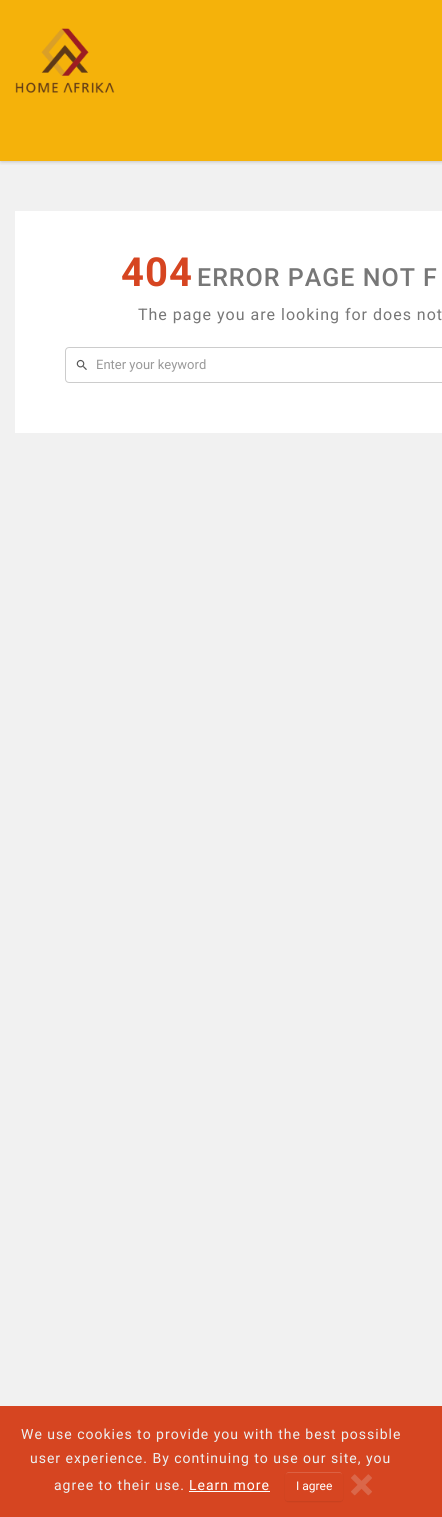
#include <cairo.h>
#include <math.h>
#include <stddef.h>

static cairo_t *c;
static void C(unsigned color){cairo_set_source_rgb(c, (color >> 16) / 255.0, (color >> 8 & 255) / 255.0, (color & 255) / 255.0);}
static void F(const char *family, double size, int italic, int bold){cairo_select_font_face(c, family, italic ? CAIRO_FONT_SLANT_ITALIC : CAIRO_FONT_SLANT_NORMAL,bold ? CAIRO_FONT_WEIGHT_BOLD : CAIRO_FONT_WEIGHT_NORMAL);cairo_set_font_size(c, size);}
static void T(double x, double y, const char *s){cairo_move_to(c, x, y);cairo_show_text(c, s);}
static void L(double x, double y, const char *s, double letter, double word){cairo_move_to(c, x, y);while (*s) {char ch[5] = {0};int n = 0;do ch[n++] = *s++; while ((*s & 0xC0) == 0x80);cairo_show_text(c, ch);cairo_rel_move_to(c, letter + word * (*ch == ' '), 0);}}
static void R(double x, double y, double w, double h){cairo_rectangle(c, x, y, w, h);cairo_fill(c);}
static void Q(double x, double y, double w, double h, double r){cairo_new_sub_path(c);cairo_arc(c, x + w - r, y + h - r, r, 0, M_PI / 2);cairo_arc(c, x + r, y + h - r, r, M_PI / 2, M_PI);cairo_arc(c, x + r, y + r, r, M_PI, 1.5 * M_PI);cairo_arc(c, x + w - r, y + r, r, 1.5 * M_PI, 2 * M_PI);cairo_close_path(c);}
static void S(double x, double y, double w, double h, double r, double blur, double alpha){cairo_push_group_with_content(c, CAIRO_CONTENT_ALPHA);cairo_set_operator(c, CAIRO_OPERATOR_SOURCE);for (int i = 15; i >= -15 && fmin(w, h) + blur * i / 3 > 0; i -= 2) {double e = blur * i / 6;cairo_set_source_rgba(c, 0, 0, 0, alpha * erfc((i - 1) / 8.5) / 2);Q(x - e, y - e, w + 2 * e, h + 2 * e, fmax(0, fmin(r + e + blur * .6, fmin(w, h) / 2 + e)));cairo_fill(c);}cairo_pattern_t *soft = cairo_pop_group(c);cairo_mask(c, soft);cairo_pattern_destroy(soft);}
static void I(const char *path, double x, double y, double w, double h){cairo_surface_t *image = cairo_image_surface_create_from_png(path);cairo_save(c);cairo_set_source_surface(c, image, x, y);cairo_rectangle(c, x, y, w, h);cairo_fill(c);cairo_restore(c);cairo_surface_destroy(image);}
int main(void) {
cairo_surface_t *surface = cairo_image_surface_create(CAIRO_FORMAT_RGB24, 442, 1517);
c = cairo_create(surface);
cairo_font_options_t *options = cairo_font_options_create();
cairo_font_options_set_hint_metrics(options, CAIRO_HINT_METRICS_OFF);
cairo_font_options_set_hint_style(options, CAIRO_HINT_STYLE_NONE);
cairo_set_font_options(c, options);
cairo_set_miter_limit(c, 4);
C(0xf1f1f1);
cairo_paint(c);
C(0xf5b20a);
R(0,0,442,161);
cairo_save(c);
cairo_rectangle(c,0,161,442,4);
cairo_clip(c);
C(0x000000);
S(1,0,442,161,0,2.5,.27);
cairo_restore(c);
I("1.png",15,28,100,65);
C(0xffffff);
R(15,211,427,222);
F("Roboto",40,0,1);
C(0xd64521);
L(121,286,"404",1,0);
F("Roboto Medium",25,0,0);
C(0x777777);
L(197,286,"ERROR PAGE NOT F",1,0);
F("Roboto",16,0,0);
L(138,320,"The page you are looking for does not",1,0);
Q(65.5,347.5,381,35,3.5);
C(0xcccccc);
cairo_set_line_width(c,1);
cairo_stroke(c);
I("2.png",76,359,11,11);
F("Roboto",13,0,0);
C(0x999999);
T(96,369,"Enter your keyword");
C(0xd64521);
R(0,1406,442,111);
F("Roboto",14,0,0);
C(0xecf0f1);
L(21,1439,"We use cookies to provide you with the best possible",1,0);
L(30,1463,"user experience. By continuing to use our site, you",1,0);
L(54,1490,"agree to their use.",1,0);
C(0xffffff);
L(189,1490,"Learn more",1,0);
R(189,1491,81,1);
C(0x000000);
S(285,1472,58,30,3,.5,.07);
C(0xd64521);
Q(285,1471,58,30,3);
cairo_fill(c);
C(0xdc6142);
cairo_new_path(c);
cairo_move_to(c,288,1473);
cairo_line_to(c,340,1473);
cairo_curve_to(c,341,1473,342,1474,342,1475);
cairo_curve_to(c,342,1470,335,1472,331,1472);
cairo_line_to(c,297,1472);
cairo_curve_to(c,293,1472,286,1470,286,1475);
cairo_curve_to(c,286,1474,287,1473,288,1473);
cairo_close_path(c);
cairo_fill(c);
Q(285.5,1471.5,57,29,2.5);
C(0xd64521);
cairo_stroke(c);
F("Roboto",12,0,0);
C(0xffffff);
T(296,1490,"I agree");
I("3.png",351,1474,21,22);
cairo_surface_write_to_png(surface, "o.png");
cairo_font_options_destroy(options);
cairo_destroy(c);
cairo_surface_destroy(surface);
return 0;
}
